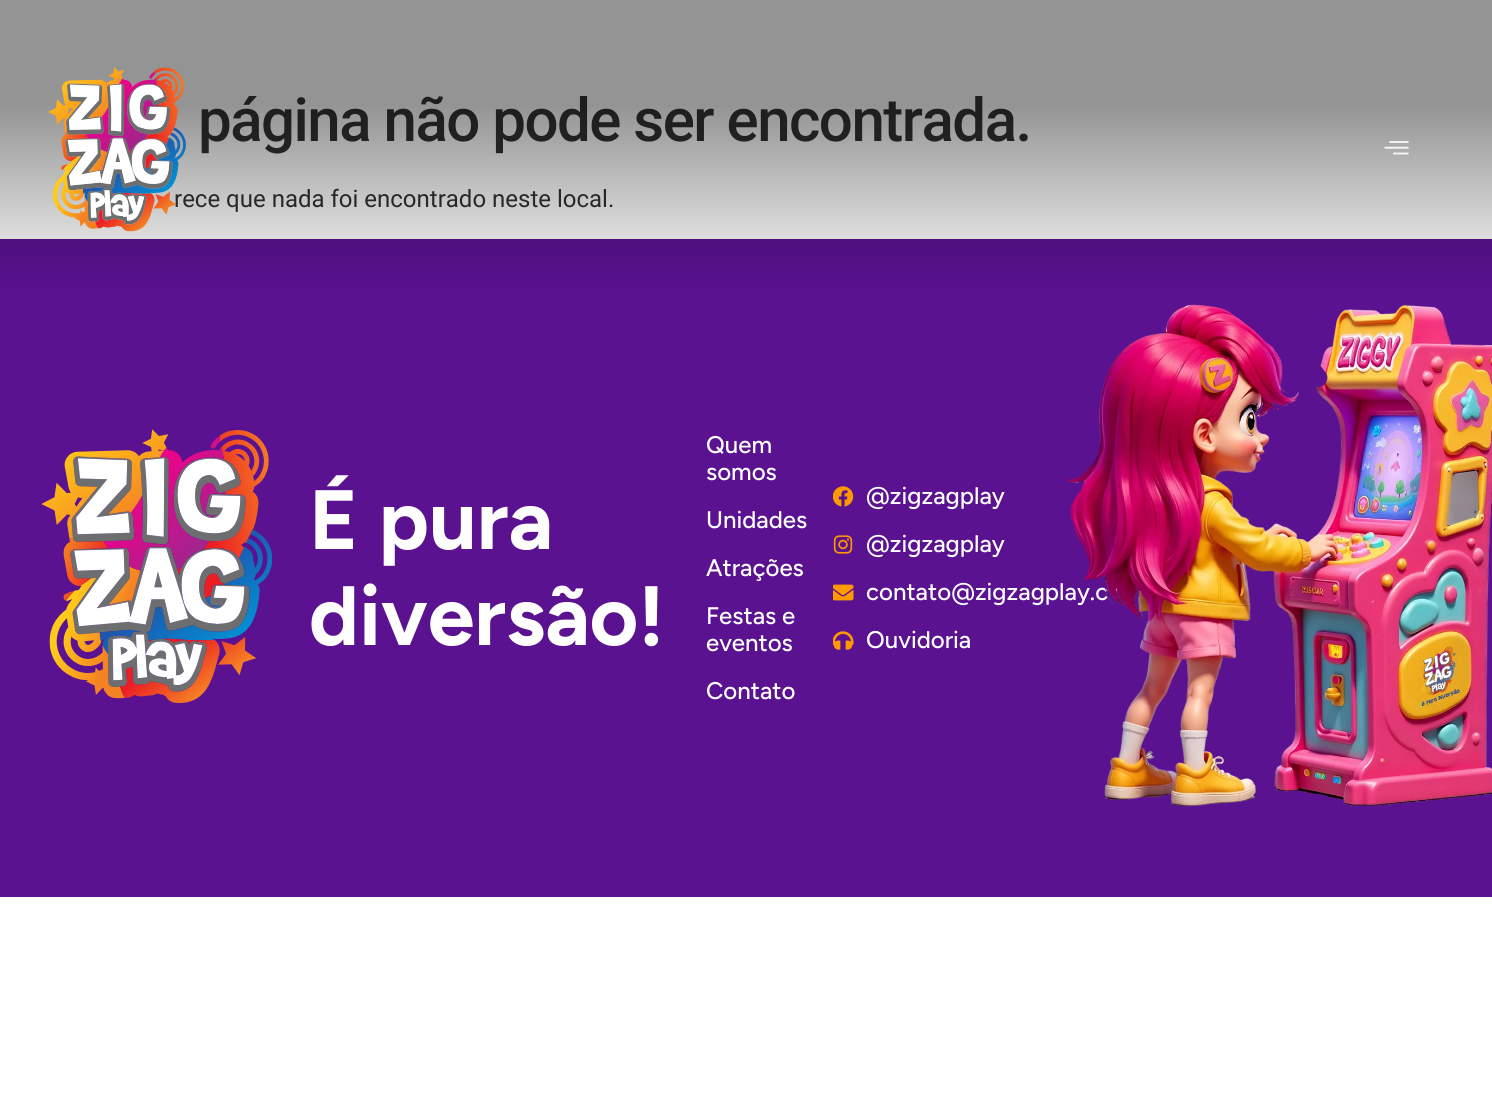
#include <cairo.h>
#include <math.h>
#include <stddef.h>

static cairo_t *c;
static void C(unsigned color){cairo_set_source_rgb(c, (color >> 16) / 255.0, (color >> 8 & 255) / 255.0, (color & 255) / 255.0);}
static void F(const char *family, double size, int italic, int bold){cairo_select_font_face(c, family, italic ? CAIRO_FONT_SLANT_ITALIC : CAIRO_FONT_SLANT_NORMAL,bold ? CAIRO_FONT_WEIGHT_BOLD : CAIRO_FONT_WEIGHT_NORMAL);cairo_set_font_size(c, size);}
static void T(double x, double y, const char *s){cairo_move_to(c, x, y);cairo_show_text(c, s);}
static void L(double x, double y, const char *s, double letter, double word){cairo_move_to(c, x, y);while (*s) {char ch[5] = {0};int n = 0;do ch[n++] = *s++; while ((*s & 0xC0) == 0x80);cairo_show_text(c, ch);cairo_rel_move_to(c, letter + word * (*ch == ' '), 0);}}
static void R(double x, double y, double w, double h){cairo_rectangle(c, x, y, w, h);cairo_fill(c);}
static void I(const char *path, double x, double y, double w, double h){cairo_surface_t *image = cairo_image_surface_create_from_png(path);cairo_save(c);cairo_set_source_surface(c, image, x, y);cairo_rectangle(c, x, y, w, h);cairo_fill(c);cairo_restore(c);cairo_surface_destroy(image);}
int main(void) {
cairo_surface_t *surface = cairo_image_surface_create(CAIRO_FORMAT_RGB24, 1492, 1096);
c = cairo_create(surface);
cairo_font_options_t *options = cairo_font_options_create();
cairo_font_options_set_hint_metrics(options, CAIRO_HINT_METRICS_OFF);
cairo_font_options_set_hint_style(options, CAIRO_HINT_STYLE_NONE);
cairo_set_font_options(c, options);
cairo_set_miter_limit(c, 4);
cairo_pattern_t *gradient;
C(0xffffff);
cairo_paint(c);
F("Roboto Medium",60,0,0);
C(0x333333);
L(198,141,"página não pode ser encontrada.",-1.5,0);
F("Roboto",24,0,0);
T(174,207,"rece que nada foi encontrado neste local.");
C(0x5a1291);
R(0,239,1492,658);
gradient = cairo_pattern_create_linear(746,299,746,0);
cairo_pattern_add_color_stop_rgba(gradient,0,0,0,0,0);
cairo_pattern_add_color_stop_rgba(gradient,.65,0,0,0,.42);
cairo_set_source(c,gradient);
cairo_pattern_destroy(gradient);
R(0,0,1492,289);
I("1.png",48,67,138,165);
I("2.png",1384,141,25,14);
I("3.png",41,429,232,274);
F("Figtree",84,0,1);
C(0xffffff);
T(309,549,"É pura");
T(309,645,"diversão!");
F("Figtree Medium",24,0,0);
T(706,453,"Quem");
T(706,480,"somos");
T(706,528,"Unidades");
T(706,576,"Atrações");
T(706,624,"Festas e");
T(706,651,"eventos");
T(706,699,"Contato");
I("4.png",833,486,21,21);
T(866,504,"@zigzagplay");
I("5.png",833,535,20,19);
T(866,552,"@zigzagplay");
I("6.png",833,584,21,17);
T(866,600,"contato@zigzagplay.c");
I("7.png",833,631,21,19);
T(866,648,"Ouvidoria");
I("8.png",1066,304,426,503);
cairo_surface_write_to_png(surface, "o.png");
cairo_font_options_destroy(options);
cairo_destroy(c);
cairo_surface_destroy(surface);
return 0;
}
